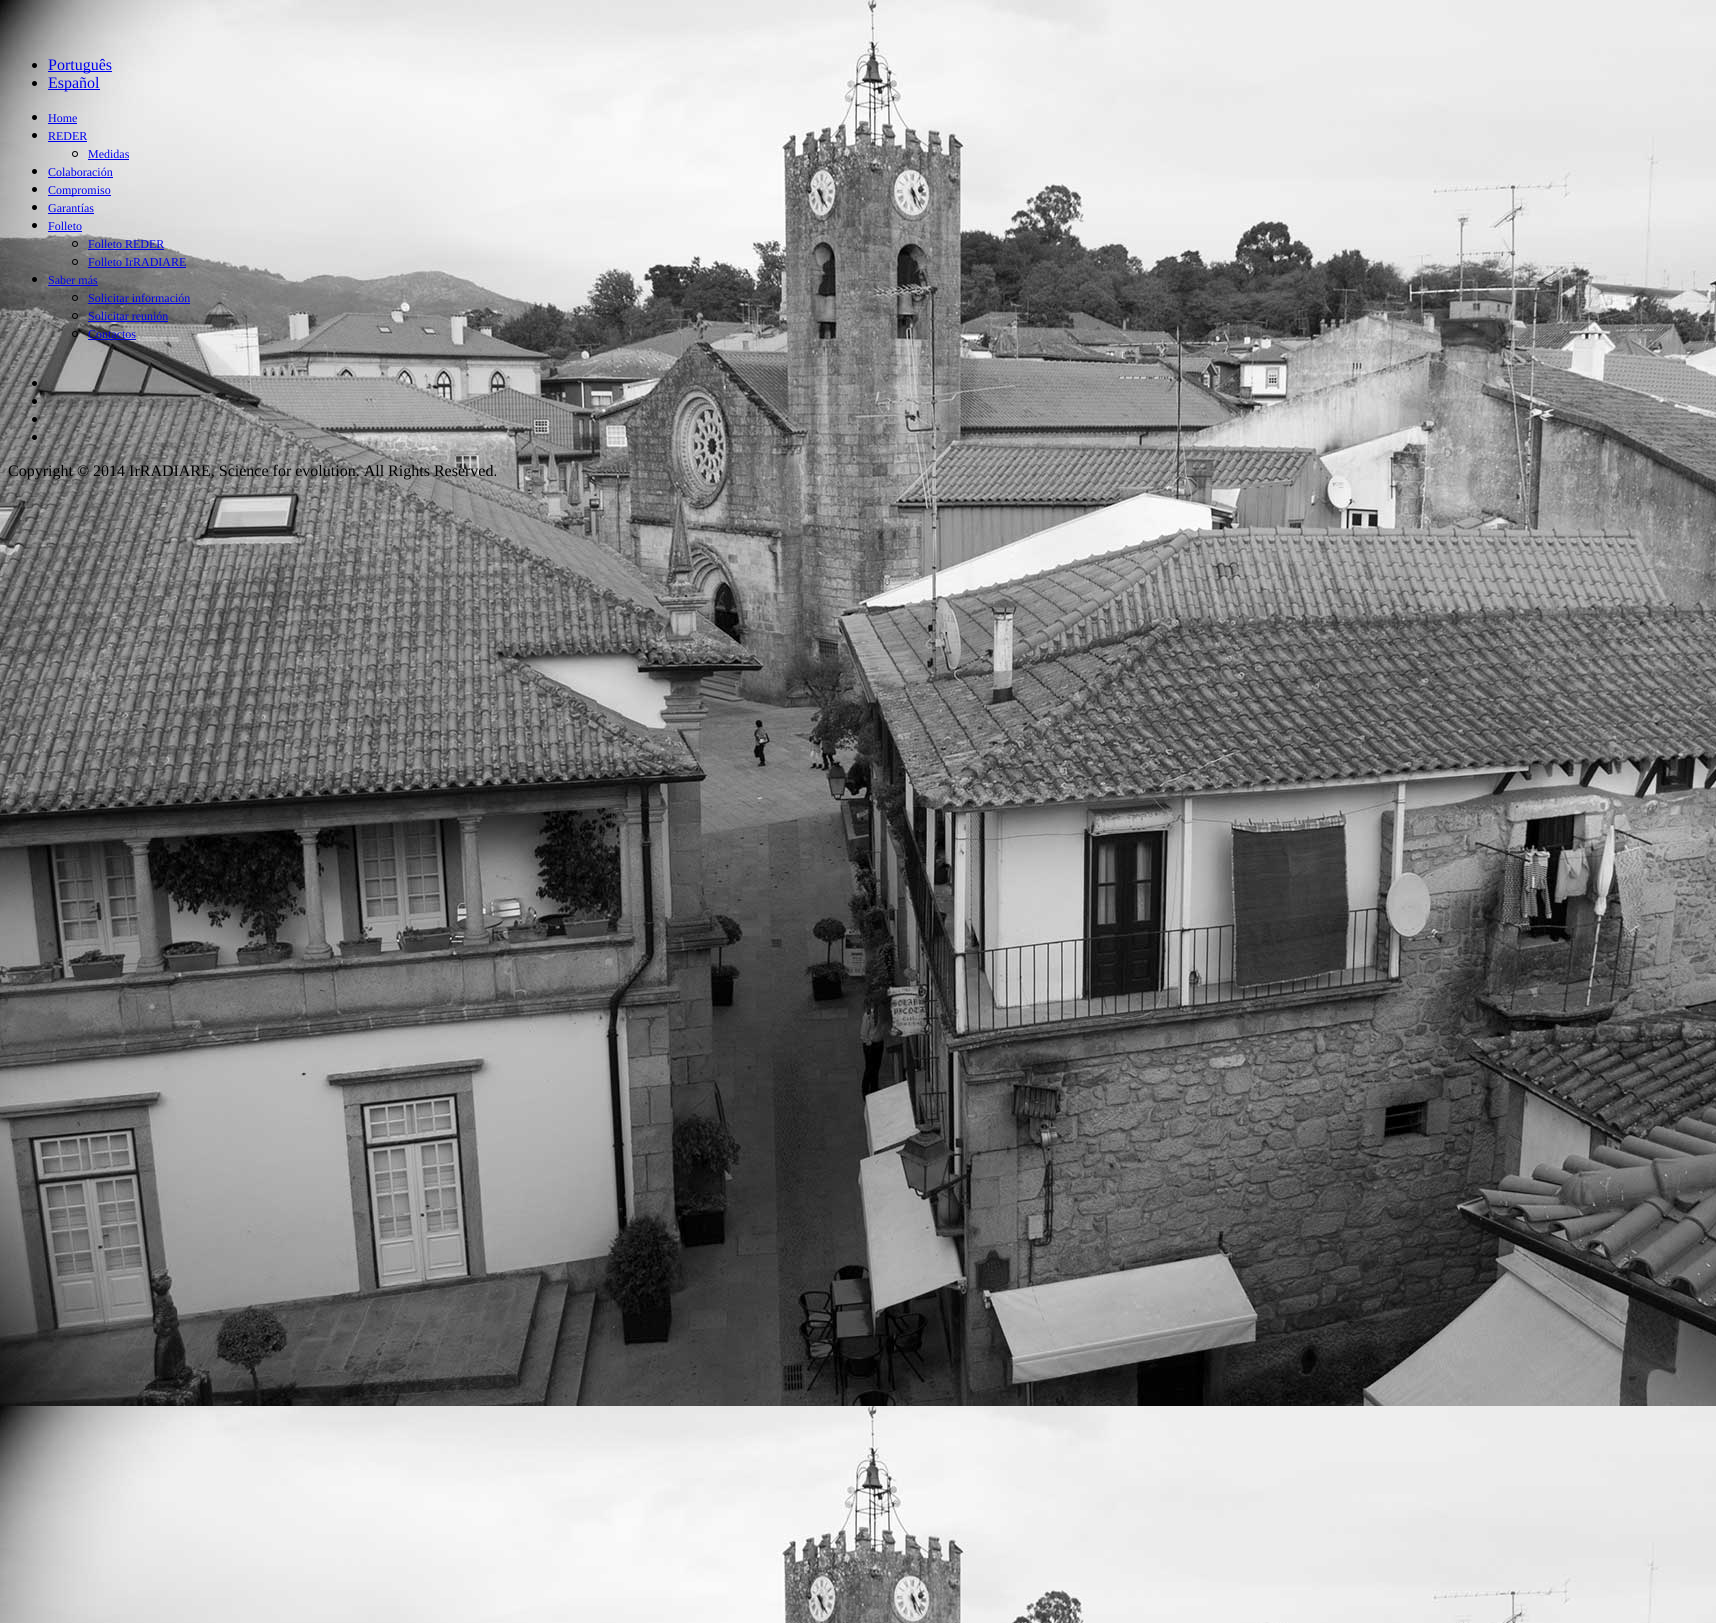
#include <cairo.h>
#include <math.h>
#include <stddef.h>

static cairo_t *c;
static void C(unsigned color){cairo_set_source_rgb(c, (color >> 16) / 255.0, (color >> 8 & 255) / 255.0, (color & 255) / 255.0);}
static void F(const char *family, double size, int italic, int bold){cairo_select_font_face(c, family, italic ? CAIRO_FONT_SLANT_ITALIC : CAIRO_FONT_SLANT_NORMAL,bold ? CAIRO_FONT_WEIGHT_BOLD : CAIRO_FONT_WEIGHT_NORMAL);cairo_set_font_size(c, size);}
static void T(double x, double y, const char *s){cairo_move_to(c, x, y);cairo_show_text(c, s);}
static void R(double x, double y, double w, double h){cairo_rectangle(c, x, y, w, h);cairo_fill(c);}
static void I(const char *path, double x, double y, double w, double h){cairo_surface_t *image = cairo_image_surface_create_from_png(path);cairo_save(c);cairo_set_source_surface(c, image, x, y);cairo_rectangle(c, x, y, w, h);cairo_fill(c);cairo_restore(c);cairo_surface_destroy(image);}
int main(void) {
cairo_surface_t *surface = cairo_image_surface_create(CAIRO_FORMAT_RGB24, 1716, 1623);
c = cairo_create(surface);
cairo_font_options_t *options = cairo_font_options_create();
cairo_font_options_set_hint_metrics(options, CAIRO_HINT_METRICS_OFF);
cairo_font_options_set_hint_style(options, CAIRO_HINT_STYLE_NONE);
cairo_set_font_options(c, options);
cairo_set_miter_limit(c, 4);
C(0xffffff);
cairo_paint(c);
I("1.png",0,0,1716,1623);
C(0x000000);
cairo_arc(c,34.5,65.5,2.5,0,2 * M_PI);
cairo_fill(c);
C(0x0000ee);
R(48,71,64,1);
F("Liberation Serif",16,0,0);
T(48,70,"Português");
C(0x000000);
cairo_new_path(c);
cairo_arc(c,34.5,83.5,2.5,0,2 * M_PI);
cairo_fill(c);
C(0x0000ee);
R(48,89,52,1);
T(48,88,"Español");
C(0x000000);
cairo_new_path(c);
cairo_arc(c,34.5,117.5,2.5,0,2 * M_PI);
cairo_fill(c);
F("Liberation Serif",12,0,0);
C(0x0000ee);
T(48,122,"Home");
R(48,123,29,1);
C(0x000000);
cairo_new_path(c);
cairo_arc(c,34.5,135.5,2.5,0,2 * M_PI);
cairo_fill(c);
C(0x0000ee);
T(48,140,"REDER");
R(48,141,39,1);
cairo_new_path(c);
cairo_arc(c,75,154,2.5,0,2 * M_PI);
C(0x000000);
cairo_set_line_width(c,1);
cairo_stroke(c);
C(0x0000ee);
T(88,158,"Medidas");
R(88,159,41,1);
C(0x000000);
cairo_new_path(c);
cairo_arc(c,34.5,171.5,2.5,0,2 * M_PI);
cairo_fill(c);
C(0x0000ee);
T(48,176,"Colaboración");
R(48,177,65,1);
C(0x000000);
cairo_new_path(c);
cairo_arc(c,34.5,189.5,2.5,0,2 * M_PI);
cairo_fill(c);
C(0x0000ee);
R(48,195,63,1);
T(48,194,"Compromiso");
C(0x000000);
cairo_new_path(c);
cairo_arc(c,34.5,207.5,2.5,0,2 * M_PI);
cairo_fill(c);
C(0x0000ee);
T(48,212,"Garantías");
R(48,213,46,1);
C(0x000000);
cairo_new_path(c);
cairo_arc(c,34.5,225.5,2.5,0,2 * M_PI);
cairo_fill(c);
C(0x0000ee);
T(48,230,"Folleto");
R(48,231,34,1);
cairo_new_path(c);
cairo_arc(c,75,244,2.5,0,2 * M_PI);
C(0x000000);
cairo_stroke(c);
C(0x0000ee);
T(88,248,"Folleto REDER");
R(88,249,76,1);
cairo_new_path(c);
cairo_arc(c,75,262,2.5,0,2 * M_PI);
C(0x000000);
cairo_stroke(c);
C(0x0000ee);
T(88,266,"Folleto IrRADIARE");
R(88,267,98,1);
C(0x000000);
cairo_new_path(c);
cairo_arc(c,34.5,279.5,2.5,0,2 * M_PI);
cairo_fill(c);
C(0x0000ee);
T(48,284,"Saber más");
R(48,285,50,1);
cairo_new_path(c);
cairo_arc(c,75,298,2.5,0,2 * M_PI);
C(0x000000);
cairo_stroke(c);
C(0x0000ee);
T(88,302,"Solicitar información");
R(88,303,102,1);
cairo_new_path(c);
cairo_arc(c,75,316,2.5,0,2 * M_PI);
C(0x000000);
cairo_stroke(c);
C(0x0000ee);
T(88,320,"Solicitar reunión");
R(88,321,80,1);
cairo_new_path(c);
cairo_arc(c,75,334,2.5,0,2 * M_PI);
C(0x000000);
cairo_stroke(c);
C(0x0000ee);
T(88,338,"Contactos");
R(88,339,48,1);
C(0x000000);
cairo_new_path(c);
cairo_arc(c,34.5,383.5,2.5,0,2 * M_PI);
cairo_fill(c);
cairo_arc(c,34.5,401.5,2.5,0,2 * M_PI);
cairo_fill(c);
cairo_arc(c,34.5,419.5,2.5,0,2 * M_PI);
cairo_fill(c);
cairo_arc(c,34.5,437.5,2.5,0,2 * M_PI);
cairo_fill(c);
F("Liberation Serif",16,0,0);
T(8,476,"Copyright © 2014 IrRADIARE, Science for evolution. All Rights Reserved.");
cairo_surface_write_to_png(surface, "o.png");
cairo_font_options_destroy(options);
cairo_destroy(c);
cairo_surface_destroy(surface);
return 0;
}
